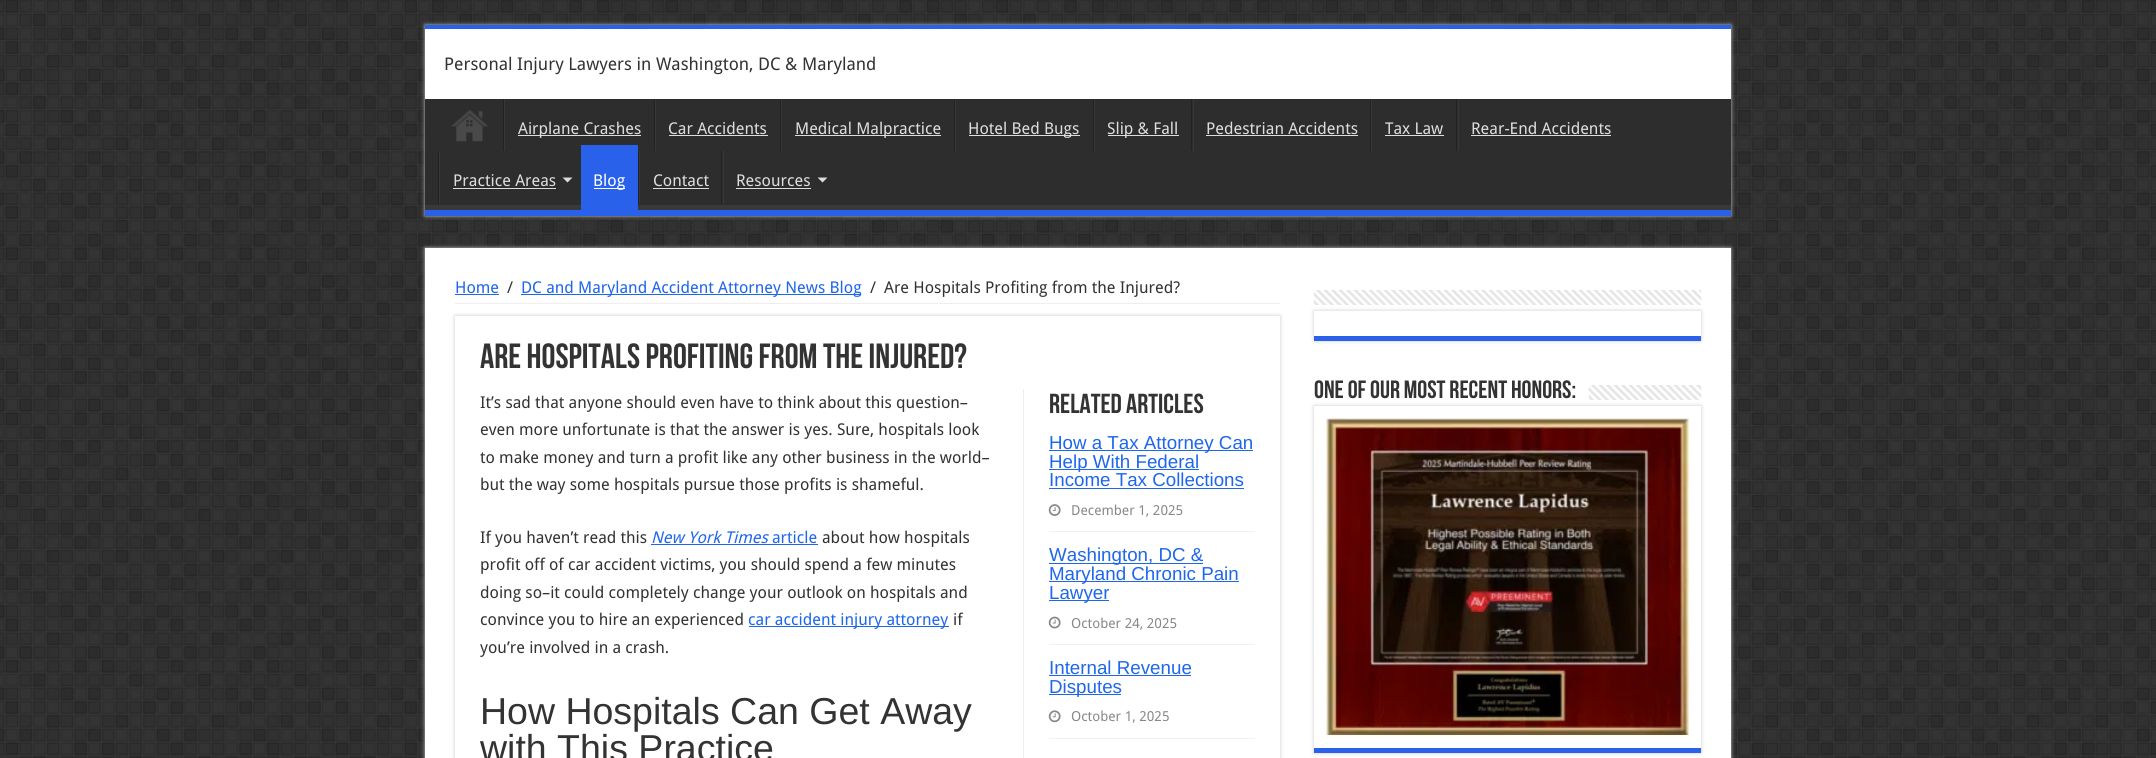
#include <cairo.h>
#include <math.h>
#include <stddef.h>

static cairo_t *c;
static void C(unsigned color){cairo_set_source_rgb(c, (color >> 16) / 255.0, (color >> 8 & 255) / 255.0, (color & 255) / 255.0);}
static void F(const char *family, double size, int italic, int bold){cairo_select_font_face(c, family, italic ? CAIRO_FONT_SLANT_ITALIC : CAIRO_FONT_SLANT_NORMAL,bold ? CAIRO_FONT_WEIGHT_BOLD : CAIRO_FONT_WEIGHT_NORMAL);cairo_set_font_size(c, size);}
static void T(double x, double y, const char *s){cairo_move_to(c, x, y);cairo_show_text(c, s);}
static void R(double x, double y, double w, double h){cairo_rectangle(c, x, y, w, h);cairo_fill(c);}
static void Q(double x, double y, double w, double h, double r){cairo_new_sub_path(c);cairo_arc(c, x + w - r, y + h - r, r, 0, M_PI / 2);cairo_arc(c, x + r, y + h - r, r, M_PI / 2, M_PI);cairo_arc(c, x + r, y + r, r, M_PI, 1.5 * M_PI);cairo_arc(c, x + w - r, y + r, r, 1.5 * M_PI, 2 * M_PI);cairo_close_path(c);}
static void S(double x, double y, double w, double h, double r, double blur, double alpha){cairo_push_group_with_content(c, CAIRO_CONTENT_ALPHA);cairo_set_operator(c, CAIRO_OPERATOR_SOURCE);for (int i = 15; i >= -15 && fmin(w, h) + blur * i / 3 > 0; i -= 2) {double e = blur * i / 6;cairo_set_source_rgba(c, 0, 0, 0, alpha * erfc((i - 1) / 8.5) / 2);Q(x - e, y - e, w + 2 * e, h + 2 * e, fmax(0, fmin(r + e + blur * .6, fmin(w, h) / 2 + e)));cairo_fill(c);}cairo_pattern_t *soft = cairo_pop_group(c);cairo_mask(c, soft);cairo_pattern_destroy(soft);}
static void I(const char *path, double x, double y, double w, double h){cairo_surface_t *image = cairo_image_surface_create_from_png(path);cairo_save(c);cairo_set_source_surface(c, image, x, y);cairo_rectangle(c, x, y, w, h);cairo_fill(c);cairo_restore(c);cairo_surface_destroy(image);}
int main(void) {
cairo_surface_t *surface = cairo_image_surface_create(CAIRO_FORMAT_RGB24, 2156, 758);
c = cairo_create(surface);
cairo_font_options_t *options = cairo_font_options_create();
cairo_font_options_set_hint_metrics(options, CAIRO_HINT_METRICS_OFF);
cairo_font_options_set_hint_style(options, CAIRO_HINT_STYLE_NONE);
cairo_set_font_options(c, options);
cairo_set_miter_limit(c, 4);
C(0x000000);
cairo_paint(c);
I("1.png",0,0,2156,758);
C(0xcacaca);
S(425,25,1306,191,0,2,1);
C(0xffffff);
R(425,29,1306,70);
C(0x2a61eb);
R(425,25,1306,4);
F("Droid Sans",17.5,0,0);
C(0x333333);
T(444,70,"Personal Injury Lawyers in Washington, DC & Maryland");
C(0x2d2d2d);
R(425,99,1306,106);
cairo_save(c);
cairo_rectangle(c,425,99,1306,111);
cairo_clip(c);
C(0x393939);
cairo_set_fill_rule(c,CAIRO_FILL_RULE_EVEN_ODD);
cairo_new_path(c);
cairo_move_to(c,301,-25);
cairo_line_to(c,1855,-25);
cairo_line_to(c,1855,334);
cairo_line_to(c,301,334);
cairo_close_path(c);
cairo_move_to(c,424,91);
cairo_line_to(c,1730,91);
cairo_curve_to(c,1731,91,1731,92,1731,92);
cairo_line_to(c,1731,204);
cairo_curve_to(c,1731,204,1731,205,1730,205);
cairo_line_to(c,424,205);
cairo_curve_to(c,423,205,422,204,422,204);
cairo_line_to(c,422,92);
cairo_curve_to(c,422,92,423,91,424,91);
cairo_close_path(c);
cairo_fill(c);
cairo_restore(c);
C(0x2a61eb);
R(425,210,1306,6);
I("2.png",451,110,37,32);
C(0x222222);
R(503,99,1,52);
C(0x383838);
R(504,99,1,52);
C(0xdddddd);
R(518,135,123,1);
F("Droid Sans",16.25,0,0);
T(518,134,"Airplane Crashes");
C(0x222222);
R(654,99,1,52);
C(0x383838);
R(655,99,1,52);
C(0xdddddd);
T(668,134,"Car Accidents");
R(669,135,99,1);
C(0x222222);
R(780,99,1,52);
C(0x383838);
R(781,99,1,52);
C(0xdddddd);
R(795,135,146,1);
T(795,134,"Medical Malpractice");
C(0x222222);
R(954,99,1,52);
C(0x383838);
R(955,99,1,52);
C(0xdddddd);
R(969,135,111,1);
T(968,134,"Hotel Bed Bugs");
C(0x222222);
R(1093,99,1,52);
C(0x383838);
R(1094,99,1,52);
C(0xdddddd);
R(1108,135,71,1);
T(1107,134,"Slip & Fall");
C(0x222222);
R(1191,99,1,52);
C(0x383838);
R(1193,99,1,52);
C(0xdddddd);
T(1206,134,"Pedestrian Accidents");
R(1206,135,152,1);
C(0x222222);
R(1370,99,1,52);
C(0x383838);
R(1371,99,1,52);
C(0xdddddd);
T(1385,134,"Tax Law");
R(1385,135,59,1);
C(0x222222);
R(1456,99,1,52);
C(0x383838);
R(1458,99,1,52);
C(0xdddddd);
T(1471,134,"Rear-End Accidents");
R(1471,135,140,1);
C(0x222222);
R(438,151,1,53);
C(0x383838);
R(439,151,1,53);
C(0xdddddd);
T(453,186,"Practice Areas");
R(453,188,103,1);
cairo_new_path(c);
cairo_move_to(c,562.5,177.5);
cairo_line_to(c,572.5,177.5);
cairo_line_to(c,567.5,182.5);
cairo_close_path(c);
cairo_fill(c);
C(0x2a61eb);
R(581,145,57,65);
C(0xffffff);
R(594,188,31,1);
T(593,186,"Blog");
C(0x222222);
R(638,151,1,53);
C(0x383838);
R(639,151,1,53);
C(0xdddddd);
T(653,186,"Contact");
R(653,188,56,1);
C(0x222222);
R(721,151,1,53);
C(0x383838);
R(723,151,1,53);
C(0xdddddd);
T(736,186,"Resources");
R(736,188,75,1);
cairo_new_path(c);
cairo_move_to(c,817.5,177.5);
cairo_line_to(c,827.5,177.5);
cairo_line_to(c,822.5,182.5);
cairo_close_path(c);
cairo_fill(c);
C(0xcacaca);
S(425,248,1306,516,0,2,1);
C(0xffffff);
R(425,248,1306,510);
C(0xeeeeee);
R(455,303,825,1);
C(0x1d66ed);
T(455,293,"Home");
R(455,294,44,1);
C(0x333333);
T(507,293,"/");
C(0x1d66ed);
R(521,294,340,1);
T(521,293,"DC and Maryland Accident Attorney News Blog");
C(0x333333);
T(870,293,"/");
T(884,293,"Are Hospitals Profiting from the Injured?");
C(0xcacaca);
S(455,316,825,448,0,2,1);
C(0xffffff);
R(455,316,825,442);
F("Bebas Neue",35,0,1);
C(0x333333);
T(480,368,"Are Hospitals Profiting from the Injured?");
F("Droid Sans",16.25,0,0);
T(480,408,"It’s sad that anyone should even have to think about this question–");
T(480,435,"even more unfortunate is that the answer is yes. Sure, hospitals look");
T(480,463,"to make money and turn a profit like any other business in the world–");
T(480,490,"but the way some hospitals pursue those profits is shameful.");
C(0xeeeeee);
R(1023,389,1,369);
F("Bebas Neue",27.5,0,1);
C(0x333333);
T(1049,413,"Related Articles");
C(0x1d66ed);
R(1049,450,204,1);
F("Liberation Sans",18.75,0,0);
T(1049,449,"How a Tax Attorney Can");
R(1049,469,150,1);
T(1049,468,"Help With Federal");
T(1049,486,"Income Tax Collections");
R(1049,488,195,1);
C(0xf2f2f2);
R(1049,531,206,1);
I("3.png",1048,504,13,12);
F("Droid Sans",13.75,0,0);
C(0x888888);
T(1071,515,"December 1, 2025");
C(0x1d66ed);
R(1049,563,154,1);
F("Liberation Sans",18.75,0,0);
T(1049,561,"Washington, DC &");
R(1049,581,190,1);
T(1049,580,"Maryland Chronic Pain");
R(1049,600,60,1);
T(1049,599,"Lawyer");
C(0xf2f2f2);
R(1049,644,206,1);
I("4.png",1048,616,13,13);
F("Droid Sans",13.75,0,0);
C(0x888888);
T(1071,628,"October 24, 2025");
F("Liberation Sans",18.75,0,0);
C(0x1d66ed);
T(1049,674,"Internal Revenue");
R(1049,675,142,1);
R(1049,694,72,1);
T(1049,693,"Disputes");
C(0xf2f2f2);
R(1049,738,206,1);
I("5.png",1048,710,13,13);
F("Droid Sans",13.75,0,0);
C(0x888888);
T(1071,721,"October 1, 2025");
F("Droid Sans",16.25,0,0);
C(0x333333);
T(480,543,"If you haven’t read this");
F("Droid Sans",16.25,1,0);
C(0x1d66ed);
T(651,543,"New York Times");
R(651,544,167,1);
F("Droid Sans",16.25,0,0);
T(772,543,"article");
C(0x333333);
T(822,543,"about how hospitals");
T(480,570,"profit off of car accident victims, you should spend a few minutes");
T(480,598,"doing so–it could completely change your outlook on hospitals and");
T(480,625,"convince you to hire an experienced");
C(0x1d66ed);
R(749,626,200,1);
T(748,625,"car accident injury attorney");
C(0x333333);
T(953,625,"if");
T(480,653,"you’re involved in a crash.");
F("Liberation Sans",37.5,0,0);
T(480,724,"How Hospitals Can Get Away");
T(480,761,"with This Practice");
C(0xcacaca);
S(1314,311,387,30,0,2,1);
I("6.png",1313,290,389,15);
C(0xffffff);
R(1314,311,387,25);
C(0x2a61eb);
R(1314,336,387,5);
F("Bebas Neue",25,0,1);
C(0x333333);
T(1314,398,"One of our most recent honors:");
C(0xcacaca);
S(1314,406,387,347,0,2,1);
I("7.png",1588,385,114,15);
C(0xffffff);
R(1314,406,387,342);
C(0x2a61eb);
R(1314,748,387,5);
I("8.png",1326,418,363,317);
cairo_surface_write_to_png(surface, "o.png");
cairo_font_options_destroy(options);
cairo_destroy(c);
cairo_surface_destroy(surface);
return 0;
}
